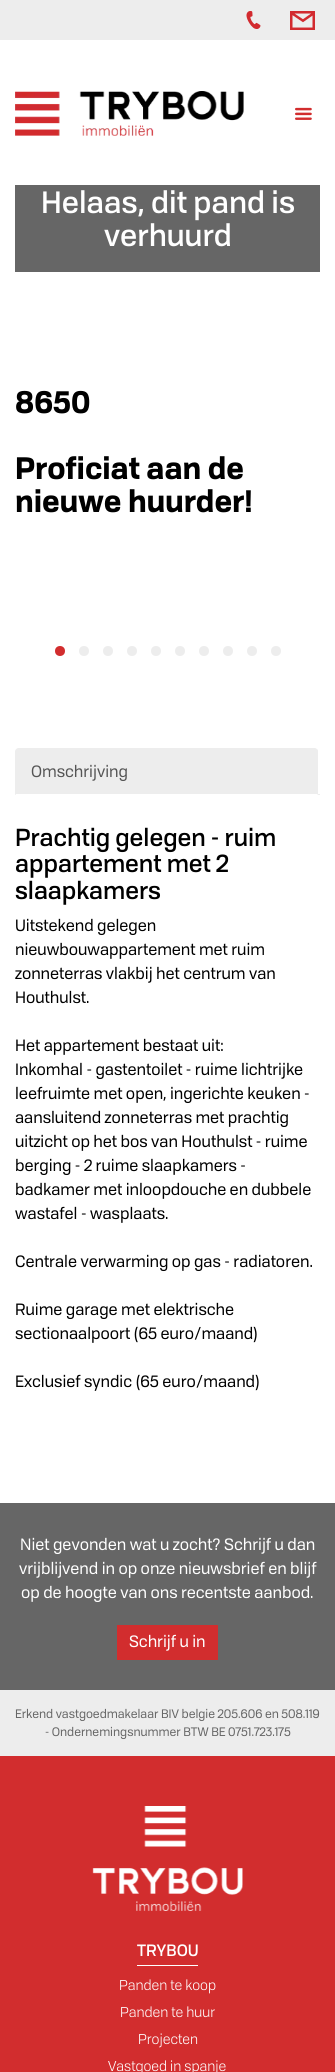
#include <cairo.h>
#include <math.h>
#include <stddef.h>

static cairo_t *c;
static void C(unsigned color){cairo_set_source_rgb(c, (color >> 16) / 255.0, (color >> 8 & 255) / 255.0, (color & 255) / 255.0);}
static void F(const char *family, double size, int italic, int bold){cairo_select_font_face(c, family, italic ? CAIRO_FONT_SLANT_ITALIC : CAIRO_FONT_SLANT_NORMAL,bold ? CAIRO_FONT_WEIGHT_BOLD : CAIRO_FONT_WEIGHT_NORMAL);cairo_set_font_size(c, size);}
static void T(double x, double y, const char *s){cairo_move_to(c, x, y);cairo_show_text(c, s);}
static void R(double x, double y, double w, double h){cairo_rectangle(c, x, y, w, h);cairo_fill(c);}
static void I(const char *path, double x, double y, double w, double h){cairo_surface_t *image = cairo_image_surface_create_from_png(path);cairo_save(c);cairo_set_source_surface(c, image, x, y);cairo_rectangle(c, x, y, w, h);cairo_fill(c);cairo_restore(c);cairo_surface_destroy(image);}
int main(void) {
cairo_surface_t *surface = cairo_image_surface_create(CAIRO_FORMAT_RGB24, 335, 2072);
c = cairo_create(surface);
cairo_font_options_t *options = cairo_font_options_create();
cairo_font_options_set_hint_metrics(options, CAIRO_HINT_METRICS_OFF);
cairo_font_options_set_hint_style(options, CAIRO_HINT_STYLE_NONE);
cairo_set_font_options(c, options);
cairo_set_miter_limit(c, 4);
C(0xffffff);
cairo_paint(c);
C(0xededed);
R(0,0,335,40);
I("1.png",246,11,15,18);
I("2.png",290,11,25,19);
I("3.png",15,91,229,45);
I("4.png",295,107,17,13);
C(0x666666);
R(15,185,305,87);
F("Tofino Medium",30,0,0);
C(0xffffff);
T(41,213,"Helaas, dit pand is");
T(104,246,"verhuurd");
F("Tofino",30,0,1);
C(0x000000);
T(15,413,"8650");
T(15,479,"Proficiat aan de");
T(15,512,"nieuwe huurder!");
C(0xd22d2e);
cairo_new_path(c);
cairo_arc(c,60,651,5,0,2 * M_PI);
cairo_fill(c);
C(0xededed);
cairo_arc(c,84,651,5,0,2 * M_PI);
cairo_fill(c);
cairo_arc(c,108,651,5,0,2 * M_PI);
cairo_fill(c);
cairo_arc(c,132,651,5,0,2 * M_PI);
cairo_fill(c);
cairo_arc(c,156,651,5,0,2 * M_PI);
cairo_fill(c);
cairo_arc(c,180,651,5,0,2 * M_PI);
cairo_fill(c);
cairo_arc(c,204,651,5,0,2 * M_PI);
cairo_fill(c);
cairo_arc(c,228,651,5,0,2 * M_PI);
cairo_fill(c);
cairo_arc(c,252,651,5,0,2 * M_PI);
cairo_fill(c);
cairo_arc(c,276,651,5,0,2 * M_PI);
cairo_fill(c);
R(318,794,2,1);
cairo_new_path(c);
cairo_move_to(c,19,748);
cairo_line_to(c,314,748);
cairo_curve_to(c,316,748,318,750,318,752);
cairo_line_to(c,318,795);
cairo_line_to(c,15,795);
cairo_line_to(c,15,752);
cairo_curve_to(c,15,750,17,748,19,748);
cairo_close_path(c);
cairo_fill(c);
cairo_new_path(c);
cairo_move_to(c,19,748);
cairo_line_to(c,16,749);
cairo_line_to(c,17,750);
cairo_line_to(c,19,749);
cairo_line_to(c,314,749);
cairo_line_to(c,316,750);
cairo_line_to(c,317,749);
cairo_line_to(c,314,748);
cairo_close_path(c);
cairo_fill(c);
cairo_new_path(c);
cairo_move_to(c,318,795);
cairo_line_to(c,318,752);
cairo_curve_to(c,318,751,318,750,317,749);
cairo_line_to(c,316,750);
cairo_curve_to(c,318,752,317,789,317,794);
cairo_close_path(c);
cairo_fill(c);
C(0xffffff);
cairo_new_path(c);
cairo_move_to(c,318,795);
cairo_line_to(c,317,794);
cairo_line_to(c,16,794);
cairo_line_to(c,15,795);
cairo_close_path(c);
cairo_fill(c);
C(0xededed);
cairo_new_path(c);
cairo_move_to(c,15,795);
cairo_line_to(c,16,794);
cairo_curve_to(c,16,789,15,752,17,750);
cairo_line_to(c,16,749);
cairo_line_to(c,15,752);
cairo_close_path(c);
cairo_fill(c);
F("Tofino",16,0,0);
C(0x555555);
T(31,777,"Omschrijving");
F("Tofino Medium",24,0,0);
C(0x000000);
T(15,846,"Prachtig gelegen - ruim");
T(15,872,"appartement met 2");
T(15,899,"slaapkamers");
F("Tofino",16,0,0);
T(15,931,"Uitstekend gelegen");
T(15,955,"nieuwbouwappartement met ruim");
T(15,979,"zonneterras vlakbij het centrum van");
T(15,1003,"Houthulst.");
T(15,1051,"Het appartement bestaat uit:");
T(15,1075,"Inkomhal - gastentoilet - ruime lichtrijke");
T(15,1099,"leefruimte met open, ingerichte keuken -");
T(15,1123,"aansluitend zonneterras met prachtig");
T(15,1147,"uitzicht op het bos van Houthulst - ruime");
T(15,1171,"berging - 2 ruime slaapkamers -");
T(15,1195,"badkamer met inloopdouche en dubbele");
T(15,1219,"wastafel - wasplaats.");
T(15,1267,"Centrale verwarming op gas - radiatoren.");
T(15,1315,"Ruime garage met elektrische");
T(15,1339,"sectionaalpoort (65 euro/maand)");
T(15,1387,"Exclusief syndic (65 euro/maand)");
C(0x666666);
R(0,1503,335,187);
C(0xffffff);
T(20,1550,"Niet gevonden wat u zocht? Schrijf u dan");
T(19,1574,"vrijblijvend in op onze nieuwsbrief en blijf");
T(21,1598,"op de hoogte van ons recentste aanbod.");
C(0xd22d2e);
R(117,1625,101,35);
C(0xffffff);
T(129,1647,"Schrijf u in");
C(0xd22d2e);
R(0,1756,335,316);
C(0xededed);
R(0,1690,335,66);
F("Tofino",12,0,0);
C(0x666666);
T(15,1718,"Erkend vastgoedmakelaar BIV belgie 205.606 en 508.119");
T(45,1736,"- Ondernemingsnummer BTW BE 0751.723.175");
I("5.png",92,1806,151,105);
C(0xffffff);
R(137,1965,61,1);
F("Tofino Medium",16,0,0);
T(137,1956,"TRYBOU");
F("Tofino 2",14,0,0);
T(119,1990,"Panden te koop");
T(120,2017,"Panden te huur");
T(138,2044,"Projecten");
T(108,2071,"Vastgoed in spanje");
cairo_surface_write_to_png(surface, "o.png");
cairo_font_options_destroy(options);
cairo_destroy(c);
cairo_surface_destroy(surface);
return 0;
}
